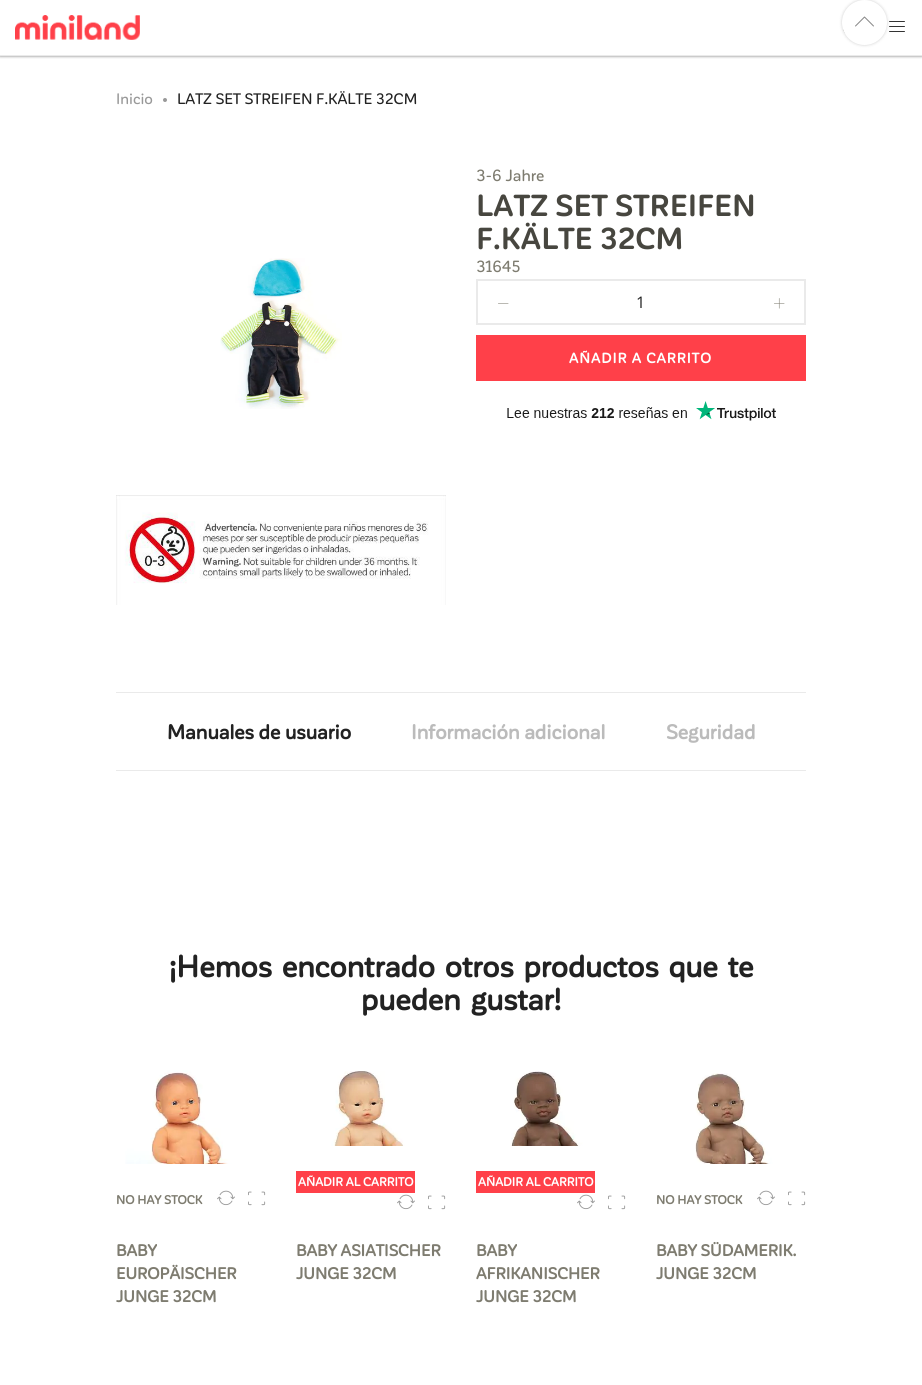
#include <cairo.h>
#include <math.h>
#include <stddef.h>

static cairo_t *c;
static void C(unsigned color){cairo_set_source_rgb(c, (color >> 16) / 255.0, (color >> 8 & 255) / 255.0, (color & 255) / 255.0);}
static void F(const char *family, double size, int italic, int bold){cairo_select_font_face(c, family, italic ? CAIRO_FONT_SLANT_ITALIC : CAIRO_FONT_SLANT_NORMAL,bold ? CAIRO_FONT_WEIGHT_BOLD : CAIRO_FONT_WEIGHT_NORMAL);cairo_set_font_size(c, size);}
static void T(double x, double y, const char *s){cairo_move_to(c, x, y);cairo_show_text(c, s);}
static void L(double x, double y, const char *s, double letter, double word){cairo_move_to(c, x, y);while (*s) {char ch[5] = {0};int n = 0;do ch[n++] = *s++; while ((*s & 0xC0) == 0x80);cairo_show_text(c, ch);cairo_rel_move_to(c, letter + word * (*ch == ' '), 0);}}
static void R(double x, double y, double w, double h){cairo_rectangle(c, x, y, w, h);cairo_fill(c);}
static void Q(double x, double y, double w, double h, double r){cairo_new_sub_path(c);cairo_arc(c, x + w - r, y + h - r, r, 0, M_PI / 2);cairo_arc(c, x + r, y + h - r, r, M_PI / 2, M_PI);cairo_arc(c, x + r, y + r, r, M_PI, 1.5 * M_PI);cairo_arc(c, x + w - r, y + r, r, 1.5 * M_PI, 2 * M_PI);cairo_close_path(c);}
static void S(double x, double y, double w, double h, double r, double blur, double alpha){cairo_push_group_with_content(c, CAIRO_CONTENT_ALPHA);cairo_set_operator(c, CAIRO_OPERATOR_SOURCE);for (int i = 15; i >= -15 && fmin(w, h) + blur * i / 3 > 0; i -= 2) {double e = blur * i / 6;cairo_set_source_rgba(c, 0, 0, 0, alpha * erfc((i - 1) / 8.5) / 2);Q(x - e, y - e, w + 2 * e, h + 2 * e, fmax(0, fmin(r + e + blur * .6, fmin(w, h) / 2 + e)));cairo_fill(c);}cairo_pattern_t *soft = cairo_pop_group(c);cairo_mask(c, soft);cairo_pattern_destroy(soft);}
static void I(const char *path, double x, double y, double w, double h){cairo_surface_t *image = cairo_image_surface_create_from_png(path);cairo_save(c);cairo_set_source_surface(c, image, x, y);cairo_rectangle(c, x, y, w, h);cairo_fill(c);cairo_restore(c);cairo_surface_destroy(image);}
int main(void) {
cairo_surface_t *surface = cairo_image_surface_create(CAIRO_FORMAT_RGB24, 922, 1385);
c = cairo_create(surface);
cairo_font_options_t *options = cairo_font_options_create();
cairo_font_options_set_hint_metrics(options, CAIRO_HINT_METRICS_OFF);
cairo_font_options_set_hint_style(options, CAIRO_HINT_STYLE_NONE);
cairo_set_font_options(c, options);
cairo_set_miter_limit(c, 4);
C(0xffffff);
cairo_paint(c);
cairo_save(c);
cairo_rectangle(c,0,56,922,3);
cairo_clip(c);
C(0x757575);
S(0,0,922,56,0,1.5,1);
cairo_restore(c);
C(0xeaeaea);
R(0,55,922,1);
I("1.png",15,15,125,25);
I("2.png",843,29,3,5);
I("3.png",889,21,16,11);
C(0x000000);
S(842,0,45,45,22.5,1.5,.2);
C(0xffffff);
cairo_arc(c,864.5,22.5,22.5,0,2 * M_PI);
cairo_fill(c);
I("4.png",855,16,19,11);
F("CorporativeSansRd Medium",15,0,0);
C(0x999999);
T(116,104,"Inicio");
cairo_new_path(c);
cairo_arc(c,165,100,2,0,2 * M_PI);
cairo_fill(c);
C(0x222222);
T(177,104,"LATZ SET STREIFEN F.KÄLTE 32CM");
I("5.png",220,258,122,151);
I("6.png",116,495,330,110);
F("CorporativeSansRd Medium",16,0,0);
C(0x7e7c70);
T(476,181,"3-6 Jahre");
F("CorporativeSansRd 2",30,0,1);
C(0x47463f);
T(476,216,"LATZ SET STREIFEN");
T(476,249,"F.KÄLTE 32CM");
F("CorporativeSansRd Medium",16,0,0);
C(0x7e7c70);
T(476,272,"31645");
cairo_rectangle(c,477,280,328,44);
C(0xeaeaea);
cairo_stroke(c);
I("7.png",498,303,11,1);
F("Open Sans",16,0,0);
C(0x222222);
T(636,308,"1");
I("8.png",774,298,11,11);
C(0xff4049);
R(476,335,330,46);
F("CorporativeSansRd",14,0,1);
C(0xffffff);
L(569,363,"AÑADIR A CARRITO",1,0);
I("9.png",507,401,269,20);
C(0xeaeaea);
R(116,692,690,1);
F("CorporativeSansRd",20,0,1);
C(0x222222);
T(167,739,"Manuales de usuario");
C(0xbbbbbb);
T(411,739,"Información adicional");
T(666,739,"Seguridad");
C(0xeaeaea);
R(116,770,690,1);
F("CorporativeSansRd",30,0,1);
C(0x222222);
L(169,977,"¡Hemos encontrado otros productos que te",0,3);
L(361,1010,"pueden gustar!",0,3);
I("10.png",125,1070,125,94);
F("CorporativeSansRd",12,0,1);
C(0x7e7c70);
T(116,1204,"NO HAY STOCK");
I("11.png",217,1190,18,16);
I("12.png",248,1191,18,15);
F("CorporativeSansRd",16,0,1);
T(116,1256,"BABY");
T(116,1279,"EUROPÄISCHER");
T(116,1302,"JUNGE 32CM");
I("13.png",306,1071,123,75);
C(0xff4049);
R(296,1171,119,22);
F("CorporativeSansRd",12,0,1);
C(0xffffff);
T(298,1186,"AÑADIR AL CARRITO");
I("11.png",397,1194,18,16);
I("12.png",428,1195,18,15);
F("CorporativeSansRd",16,0,1);
C(0x7e7c70);
T(296,1256,"BABY ASIATISCHER");
T(296,1279,"JUNGE 32CM");
I("14.png",511,1071,96,75);
C(0xff4049);
R(476,1171,119,22);
F("CorporativeSansRd",12,0,1);
C(0xffffff);
T(478,1186,"AÑADIR AL CARRITO");
I("11.png",577,1194,18,16);
I("12.png",608,1195,18,15);
F("CorporativeSansRd",16,0,1);
C(0x7e7c70);
T(476,1256,"BABY");
T(476,1279,"AFRIKANISCHER");
T(476,1302,"JUNGE 32CM");
I("15.png",695,1073,95,91);
F("CorporativeSansRd",12,0,1);
T(656,1204,"NO HAY STOCK");
I("11.png",757,1190,18,16);
I("12.png",788,1191,18,15);
F("CorporativeSansRd",16,0,1);
T(656,1256,"BABY SÜDAMERIK.");
T(656,1279,"JUNGE 32CM");
cairo_surface_write_to_png(surface, "o.png");
cairo_font_options_destroy(options);
cairo_destroy(c);
cairo_surface_destroy(surface);
return 0;
}
